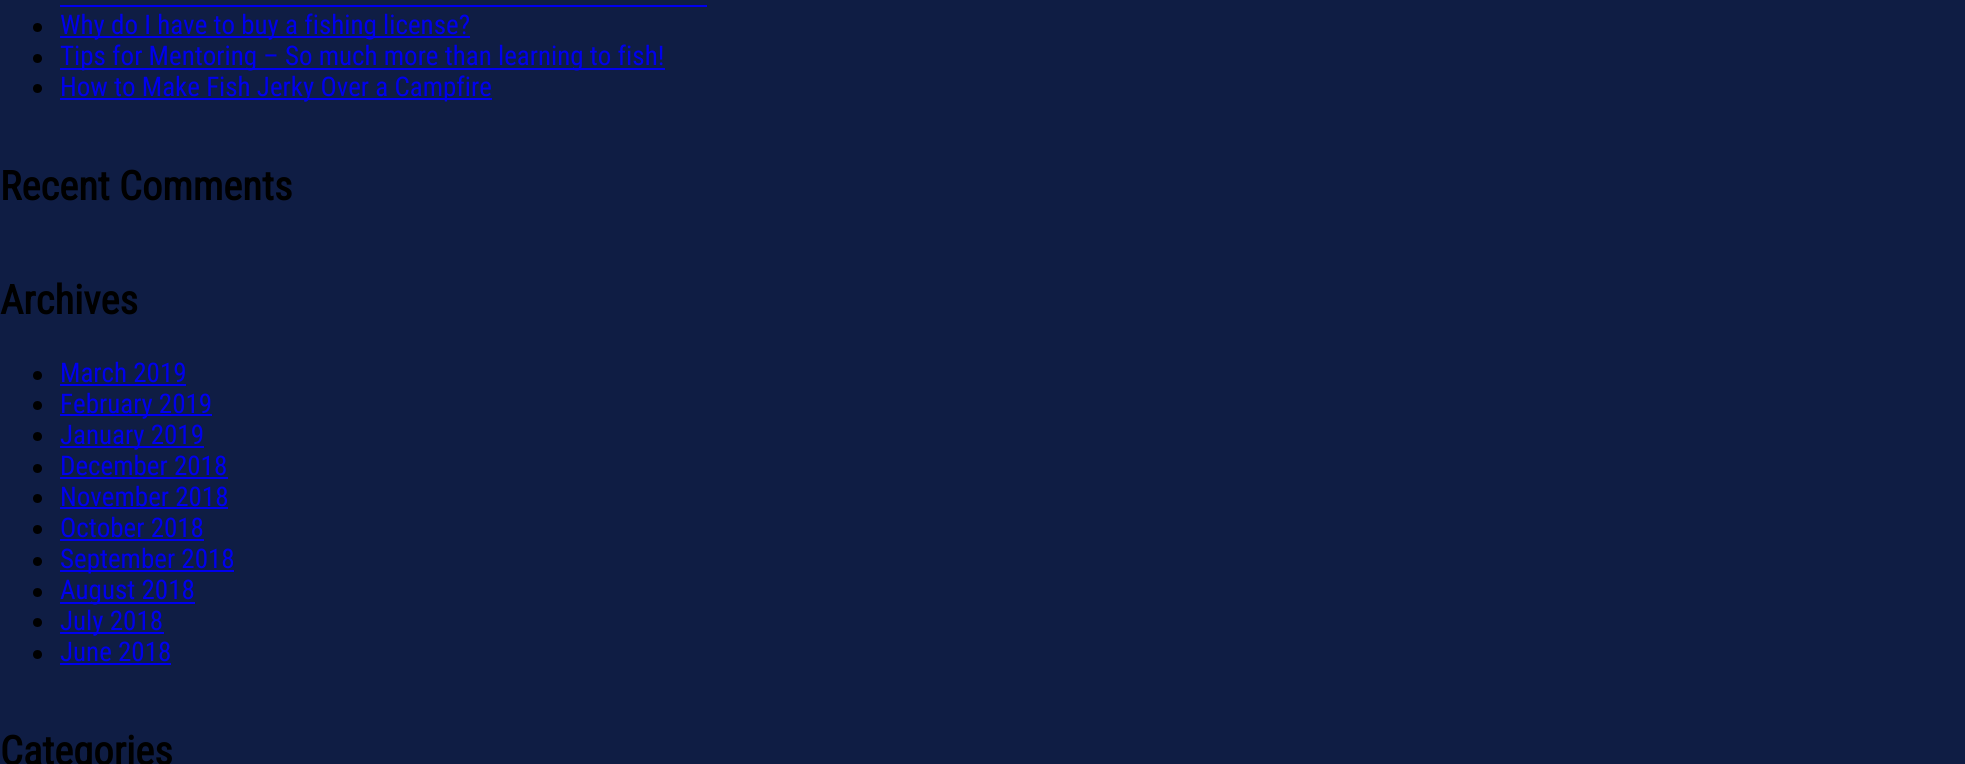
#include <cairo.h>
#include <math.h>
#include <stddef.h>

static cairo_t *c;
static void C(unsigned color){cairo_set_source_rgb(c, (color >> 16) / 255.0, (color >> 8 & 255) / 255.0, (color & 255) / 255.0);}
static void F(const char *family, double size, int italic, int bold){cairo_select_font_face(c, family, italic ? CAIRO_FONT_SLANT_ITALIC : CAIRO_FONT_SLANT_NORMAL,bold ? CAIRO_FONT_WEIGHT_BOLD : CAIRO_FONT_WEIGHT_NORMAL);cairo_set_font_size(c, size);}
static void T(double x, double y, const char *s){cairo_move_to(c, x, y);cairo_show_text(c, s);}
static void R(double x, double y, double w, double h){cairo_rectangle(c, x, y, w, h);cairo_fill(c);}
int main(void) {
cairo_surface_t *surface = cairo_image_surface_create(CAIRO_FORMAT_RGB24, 1965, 764);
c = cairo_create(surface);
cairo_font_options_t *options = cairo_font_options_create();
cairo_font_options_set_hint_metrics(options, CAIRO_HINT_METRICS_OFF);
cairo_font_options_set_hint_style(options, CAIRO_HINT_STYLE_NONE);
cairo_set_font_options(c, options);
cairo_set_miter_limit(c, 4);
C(0x0f1d44);
cairo_paint(c);
C(0x0000ee);
R(60,5,647,2);
C(0x000000);
cairo_arc(c,37.5,27.5,4.5,0,2 * M_PI);
cairo_fill(c);
C(0x0000ee);
R(60,36,410,2);
F("Roboto Condensed",27,0,0);
T(60,34,"Why do I have to buy a fishing license?");
C(0x000000);
cairo_new_path(c);
cairo_arc(c,37.5,58.5,4.5,0,2 * M_PI);
cairo_fill(c);
C(0x0000ee);
R(60,68,605,2);
T(60,65,"Tips for Mentoring – So much more than learning to fish!");
C(0x000000);
cairo_new_path(c);
cairo_arc(c,37.5,88.5,4.5,0,2 * M_PI);
cairo_fill(c);
C(0x0000ee);
R(60,98,432,2);
T(60,96,"How to Make Fish Jerky Over a Campfire");
F("Roboto Condensed",40.5,0,1);
C(0x000000);
T(0,200,"Recent Comments");
T(0,314,"Archives");
cairo_new_path(c);
cairo_arc(c,37.5,375.5,4.5,0,2 * M_PI);
cairo_fill(c);
F("Roboto Condensed",27,0,0);
C(0x0000ee);
T(60,382,"March 2019");
R(60,384,126,2);
C(0x000000);
cairo_new_path(c);
cairo_arc(c,37.5,405.5,4.5,0,2 * M_PI);
cairo_fill(c);
C(0x0000ee);
R(60,414,152,2);
T(60,413,"February 2019");
C(0x000000);
cairo_new_path(c);
cairo_arc(c,37.5,436.5,4.5,0,2 * M_PI);
cairo_fill(c);
C(0x0000ee);
R(60,446,144,2);
T(60,444,"January 2019");
C(0x000000);
cairo_new_path(c);
cairo_arc(c,37.5,468.5,4.5,0,2 * M_PI);
cairo_fill(c);
C(0x0000ee);
T(60,475,"December 2018");
R(60,477,168,2);
C(0x000000);
cairo_new_path(c);
cairo_arc(c,37.5,498.5,4.5,0,2 * M_PI);
cairo_fill(c);
C(0x0000ee);
T(60,506,"November 2018");
R(60,507,168,2);
C(0x000000);
cairo_new_path(c);
cairo_arc(c,37.5,529.5,4.5,0,2 * M_PI);
cairo_fill(c);
C(0x0000ee);
T(60,537,"October 2018");
R(60,539,144,2);
C(0x000000);
cairo_new_path(c);
cairo_arc(c,37.5,561.5,4.5,0,2 * M_PI);
cairo_fill(c);
C(0x0000ee);
R(60,570,174,2);
T(60,568,"September 2018");
C(0x000000);
cairo_new_path(c);
cairo_arc(c,37.5,592.5,4.5,0,2 * M_PI);
cairo_fill(c);
C(0x0000ee);
R(60,602,135,2);
T(60,599,"August 2018");
C(0x000000);
cairo_new_path(c);
cairo_arc(c,37.5,622.5,4.5,0,2 * M_PI);
cairo_fill(c);
C(0x0000ee);
R(60,632,104,2);
T(60,630,"July 2018");
C(0x000000);
cairo_new_path(c);
cairo_arc(c,37.5,654.5,4.5,0,2 * M_PI);
cairo_fill(c);
C(0x0000ee);
T(60,661,"June 2018");
R(60,663,111,2);
F("Roboto Condensed",40.5,0,1);
C(0x000000);
T(0,765,"Categories");
cairo_surface_write_to_png(surface, "o.png");
cairo_font_options_destroy(options);
cairo_destroy(c);
cairo_surface_destroy(surface);
return 0;
}
